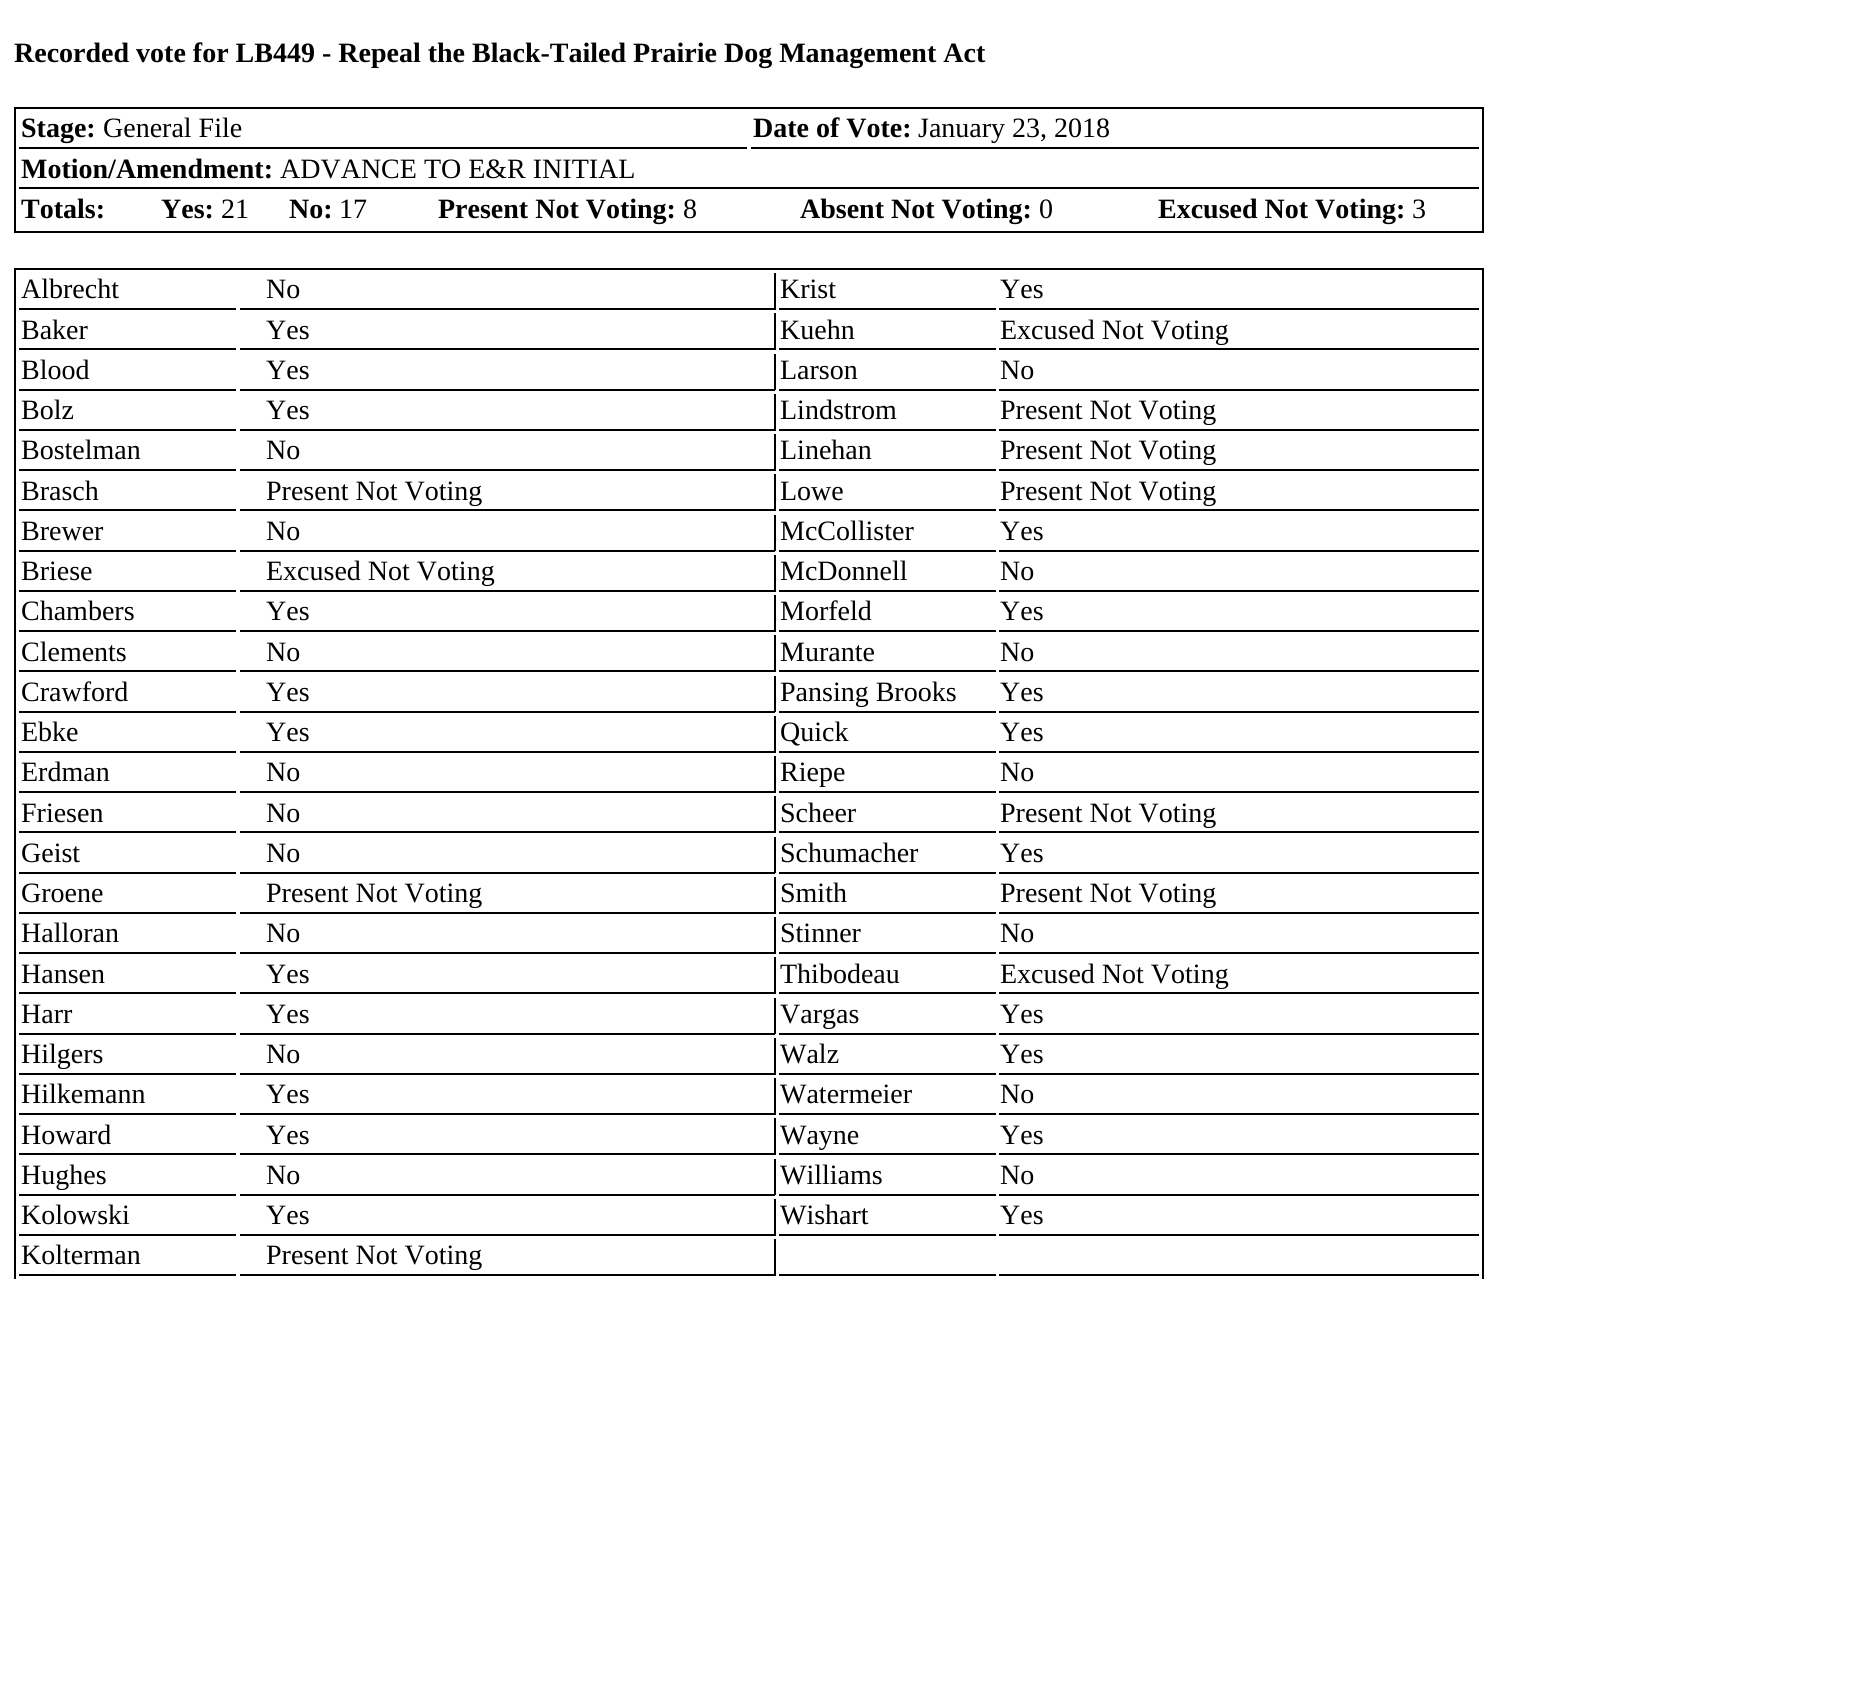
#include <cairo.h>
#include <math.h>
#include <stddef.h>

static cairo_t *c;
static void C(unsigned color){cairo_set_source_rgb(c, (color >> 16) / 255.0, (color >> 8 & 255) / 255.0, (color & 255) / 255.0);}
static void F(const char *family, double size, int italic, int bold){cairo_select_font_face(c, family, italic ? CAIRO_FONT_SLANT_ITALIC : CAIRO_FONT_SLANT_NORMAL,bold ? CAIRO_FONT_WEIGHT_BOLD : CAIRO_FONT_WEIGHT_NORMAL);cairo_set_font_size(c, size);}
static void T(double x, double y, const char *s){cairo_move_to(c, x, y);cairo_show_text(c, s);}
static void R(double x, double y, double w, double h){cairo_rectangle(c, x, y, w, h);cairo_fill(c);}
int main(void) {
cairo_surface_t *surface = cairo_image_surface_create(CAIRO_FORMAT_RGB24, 1864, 1681);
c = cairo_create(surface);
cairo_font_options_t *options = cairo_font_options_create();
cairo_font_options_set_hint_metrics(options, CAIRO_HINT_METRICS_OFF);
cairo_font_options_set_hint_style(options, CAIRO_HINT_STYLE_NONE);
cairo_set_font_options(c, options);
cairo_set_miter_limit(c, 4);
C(0xffffff);
cairo_paint(c);
F("Liberation Serif",28,0,1);
C(0x000000);
T(14,62,"Recorded vote for LB449 - Repeal the Black-Tailed Prairie Dog Management Act");
cairo_rectangle(c,15,108,1468,124);
cairo_stroke(c);
R(19,147,728,2);
T(21,137,"Stage:");
F("Liberation Serif",28,0,0);
T(103,137,"General File");
R(751,147,728,2);
F("Liberation Serif",28,0,1);
T(753,137,"Date of Vote:");
F("Liberation Serif",28,0,0);
T(918,137,"January 23, 2018");
R(19,187,1460,2);
F("Liberation Serif",28,0,1);
T(21,178,"Motion/Amendment:");
F("Liberation Serif",28,0,0);
T(280,178,"ADVANCE TO E&R INITIAL");
F("Liberation Serif",28,0,1);
T(21,218,"Totals:");
T(161,218,"Yes:");
F("Liberation Serif",28,0,0);
T(221,218,"21");
F("Liberation Serif",28,0,1);
T(289,218,"No:");
F("Liberation Serif",28,0,0);
T(339,218,"17");
F("Liberation Serif",28,0,1);
T(438,218,"Present Not Voting:");
F("Liberation Serif",28,0,0);
T(683,218,"8");
F("Liberation Serif",28,0,1);
T(800,218,"Absent Not Voting:");
F("Liberation Serif",28,0,0);
T(1039,218,"0");
F("Liberation Serif",28,0,1);
T(1158,218,"Excused Not Voting:");
F("Liberation Serif",28,0,0);
T(1412,218,"3");
R(14,268,1470,2);
R(1482,268,2,1011);
R(14,268,2,1011);
R(19,308,217,2);
T(21,298,"Albrecht");
R(774,273,2,37);
R(240,308,535,2);
T(266,298,"No");
R(779,308,217,2);
T(780,298,"Krist");
R(999,308,480,2);
T(1000,298,"Yes");
R(19,348,217,2);
T(21,339,"Baker");
R(774,313,2,37);
R(240,348,535,2);
T(266,339,"Yes");
R(779,348,217,2);
T(780,339,"Kuehn");
R(999,348,480,2);
T(1000,339,"Excused Not Voting");
R(19,389,217,2);
T(21,379,"Blood");
R(774,354,2,36);
R(240,389,535,2);
T(266,379,"Yes");
R(779,389,217,2);
T(780,379,"Larson");
R(999,389,480,2);
T(1000,379,"No");
R(19,429,217,2);
T(21,419,"Bolz");
R(774,394,2,37);
R(240,429,535,2);
T(266,419,"Yes");
R(779,429,217,2);
T(780,419,"Lindstrom");
R(999,429,480,2);
T(1000,419,"Present Not Voting");
R(19,469,217,2);
T(21,459,"Bostelman");
R(774,434,2,37);
R(240,469,535,2);
T(266,459,"No");
R(779,469,217,2);
T(780,459,"Linehan");
R(999,469,480,2);
T(1000,459,"Present Not Voting");
R(19,509,217,2);
T(21,500,"Brasch");
R(774,474,2,37);
R(240,509,535,2);
T(266,500,"Present Not Voting");
R(779,509,217,2);
T(780,500,"Lowe");
R(999,509,480,2);
T(1000,500,"Present Not Voting");
R(19,550,217,2);
T(21,540,"Brewer");
R(774,515,2,36);
R(240,550,535,2);
T(266,540,"No");
R(779,550,217,2);
T(780,540,"McCollister");
R(999,550,480,2);
T(1000,540,"Yes");
R(19,590,217,2);
T(21,580,"Briese");
R(774,555,2,37);
R(240,590,535,2);
T(266,580,"Excused Not Voting");
R(779,590,217,2);
T(780,580,"McDonnell");
R(999,590,480,2);
T(1000,580,"No");
R(19,630,217,2);
T(21,620,"Chambers");
R(774,595,2,37);
R(240,630,535,2);
T(266,620,"Yes");
R(779,630,217,2);
T(780,620,"Morfeld");
R(999,630,480,2);
T(1000,620,"Yes");
R(19,670,217,2);
T(21,661,"Clements");
R(774,635,2,37);
R(240,670,535,2);
T(266,661,"No");
R(779,670,217,2);
T(780,661,"Murante");
R(999,670,480,2);
T(1000,661,"No");
R(19,711,217,2);
T(21,701,"Crawford");
R(774,676,2,36);
R(240,711,535,2);
T(266,701,"Yes");
R(779,711,217,2);
T(780,701,"Pansing Brooks");
R(999,711,480,2);
T(1000,701,"Yes");
R(19,751,217,2);
T(21,741,"Ebke");
R(774,716,2,37);
R(240,751,535,2);
T(266,741,"Yes");
R(779,751,217,2);
T(780,741,"Quick");
R(999,751,480,2);
T(1000,741,"Yes");
R(19,791,217,2);
T(21,781,"Erdman");
R(774,756,2,37);
R(240,791,535,2);
T(266,781,"No");
R(779,791,217,2);
T(780,781,"Riepe");
R(999,791,480,2);
T(1000,781,"No");
R(19,831,217,2);
T(21,822,"Friesen");
R(774,796,2,37);
R(240,831,535,2);
T(266,822,"No");
R(779,831,217,2);
T(780,822,"Scheer");
R(999,831,480,2);
T(1000,822,"Present Not Voting");
R(19,872,217,2);
T(21,862,"Geist");
R(774,837,2,36);
R(240,872,535,2);
T(266,862,"No");
R(779,872,217,2);
T(780,862,"Schumacher");
R(999,872,480,2);
T(1000,862,"Yes");
R(19,912,217,2);
T(21,902,"Groene");
R(774,877,2,37);
R(240,912,535,2);
T(266,902,"Present Not Voting");
R(779,912,217,2);
T(780,902,"Smith");
R(999,912,480,2);
T(1000,902,"Present Not Voting");
R(19,952,217,2);
T(21,942,"Halloran");
R(774,917,2,37);
R(240,952,535,2);
T(266,942,"No");
R(779,952,217,2);
T(780,942,"Stinner");
R(999,952,480,2);
T(1000,942,"No");
R(19,992,217,2);
T(21,983,"Hansen");
R(774,957,2,37);
R(240,992,535,2);
T(266,983,"Yes");
R(779,992,217,2);
T(780,983,"Thibodeau");
R(999,992,480,2);
T(1000,983,"Excused Not Voting");
R(19,1033,217,2);
T(21,1023,"Harr");
R(774,998,2,36);
R(240,1033,535,2);
T(266,1023,"Yes");
R(779,1033,217,2);
T(780,1023,"Vargas");
R(999,1033,480,2);
T(1000,1023,"Yes");
R(19,1073,217,2);
T(21,1063,"Hilgers");
R(774,1038,2,37);
R(240,1073,535,2);
T(266,1063,"No");
R(779,1073,217,2);
T(780,1063,"Walz");
R(999,1073,480,2);
T(1000,1063,"Yes");
R(19,1113,217,2);
T(21,1103,"Hilkemann");
R(774,1078,2,37);
R(240,1113,535,2);
T(266,1103,"Yes");
R(779,1113,217,2);
T(780,1103,"Watermeier");
R(999,1113,480,2);
T(1000,1103,"No");
R(19,1153,217,2);
T(21,1144,"Howard");
R(774,1118,2,37);
R(240,1153,535,2);
T(266,1144,"Yes");
R(779,1153,217,2);
T(780,1144,"Wayne");
R(999,1153,480,2);
T(1000,1144,"Yes");
R(19,1194,217,2);
T(21,1184,"Hughes");
R(774,1159,2,36);
R(240,1194,535,2);
T(266,1184,"No");
R(779,1194,217,2);
T(780,1184,"Williams");
R(999,1194,480,2);
T(1000,1184,"No");
R(19,1234,217,2);
T(21,1224,"Kolowski");
R(774,1199,2,37);
R(240,1234,535,2);
T(266,1224,"Yes");
R(779,1234,217,2);
T(780,1224,"Wishart");
R(999,1234,480,2);
T(1000,1224,"Yes");
R(19,1274,217,2);
T(21,1264,"Kolterman");
R(774,1239,2,37);
R(240,1274,535,2);
T(266,1264,"Present Not Voting");
R(779,1274,217,2);
R(999,1274,480,2);
cairo_surface_write_to_png(surface, "o.png");
cairo_font_options_destroy(options);
cairo_destroy(c);
cairo_surface_destroy(surface);
return 0;
}
